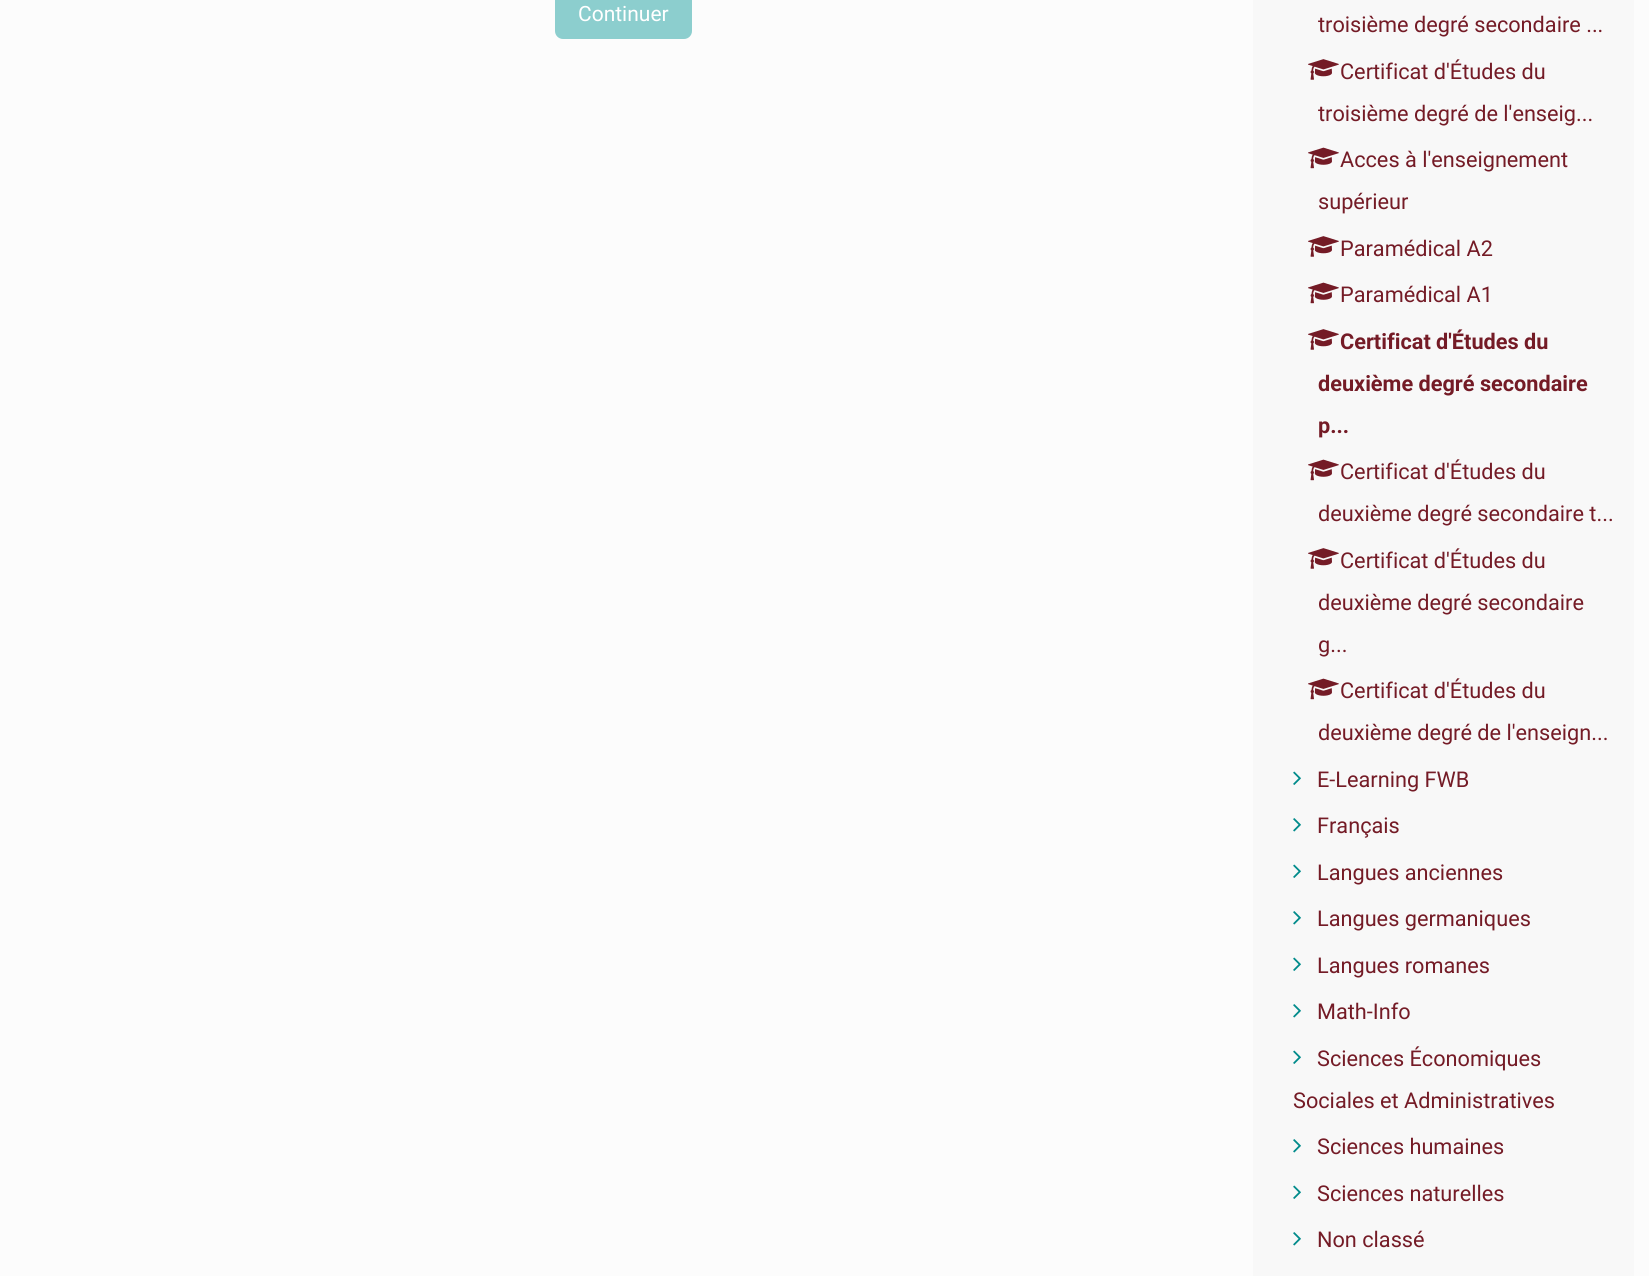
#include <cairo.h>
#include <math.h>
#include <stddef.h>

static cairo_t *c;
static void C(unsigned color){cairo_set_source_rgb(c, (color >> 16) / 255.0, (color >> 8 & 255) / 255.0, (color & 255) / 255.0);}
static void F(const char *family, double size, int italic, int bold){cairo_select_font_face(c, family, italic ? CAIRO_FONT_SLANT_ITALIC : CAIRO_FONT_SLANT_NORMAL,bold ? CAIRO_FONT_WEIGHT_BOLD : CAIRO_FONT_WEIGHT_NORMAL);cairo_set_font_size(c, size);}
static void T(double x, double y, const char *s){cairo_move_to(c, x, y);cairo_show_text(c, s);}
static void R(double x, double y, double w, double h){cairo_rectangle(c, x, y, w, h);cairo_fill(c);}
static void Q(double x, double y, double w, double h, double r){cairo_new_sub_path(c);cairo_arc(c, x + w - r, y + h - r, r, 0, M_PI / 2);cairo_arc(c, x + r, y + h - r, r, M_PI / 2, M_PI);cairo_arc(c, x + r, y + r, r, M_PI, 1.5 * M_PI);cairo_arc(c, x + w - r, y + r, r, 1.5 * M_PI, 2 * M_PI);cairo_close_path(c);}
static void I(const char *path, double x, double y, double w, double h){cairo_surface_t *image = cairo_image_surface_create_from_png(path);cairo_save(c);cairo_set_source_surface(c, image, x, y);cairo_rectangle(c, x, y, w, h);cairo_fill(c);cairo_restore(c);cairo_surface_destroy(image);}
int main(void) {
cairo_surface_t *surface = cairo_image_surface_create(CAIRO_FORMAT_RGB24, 1649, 1276);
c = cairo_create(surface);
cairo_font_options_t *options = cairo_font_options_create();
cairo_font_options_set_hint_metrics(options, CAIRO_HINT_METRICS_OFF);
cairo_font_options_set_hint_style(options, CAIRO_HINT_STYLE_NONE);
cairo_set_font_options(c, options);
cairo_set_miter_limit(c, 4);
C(0xfcfcfc);
cairo_paint(c);
C(0x8ccece);
Q(555,-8,137,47,8);
cairo_fill(c);
F("Roboto",21,0,0);
C(0xffffff);
T(578,21,"Continuer");
C(0xf8f8f8);
R(1253,0,381,1276);
F("Roboto",21.7,0,0);
C(0x741b26);
T(1318,32,"troisième degré secondaire ...");
I("1.png",1308,59,31,21);
T(1340,79,"Certificat d'Études du");
T(1318,121,"troisième degré de l'enseig...");
I("2.png",1308,147,31,22);
T(1340,167,"Acces à l'enseignement");
T(1318,209,"supérieur");
I("1.png",1308,236,31,21);
T(1340,256,"Paramédical A2");
I("2.png",1308,282,31,22);
T(1340,302,"Paramédical A1");
I("1.png",1308,329,31,21);
F("Roboto",21.7,0,1);
T(1340,349,"Certificat d'Études du");
T(1318,391,"deuxième degré secondaire");
T(1318,433,"p...");
I("2.png",1308,459,31,22);
F("Roboto",21.7,0,0);
T(1340,479,"Certificat d'Études du");
T(1318,521,"deuxième degré secondaire t...");
I("1.png",1308,548,31,21);
T(1340,568,"Certificat d'Études du");
T(1318,610,"deuxième degré secondaire");
T(1318,652,"g...");
I("2.png",1308,678,31,22);
T(1340,698,"Certificat d'Études du");
T(1318,740,"deuxième degré de l'enseign...");
I("3.png",1293,771,8,14);
T(1317,787,"E-Learning FWB");
I("4.png",1293,818,8,14);
T(1317,833,"Français");
I("3.png",1293,864,8,14);
T(1317,880,"Langues anciennes");
I("4.png",1293,911,8,14);
T(1317,926,"Langues germaniques");
I("3.png",1293,957,8,14);
T(1317,973,"Langues romanes");
I("4.png",1293,1004,8,14);
T(1317,1019,"Math-Info");
I("3.png",1293,1050,8,14);
T(1317,1066,"Sciences Économiques");
T(1293,1108,"Sociales et Administratives");
I("4.png",1293,1139,8,14);
T(1317,1154,"Sciences humaines");
I("3.png",1293,1185,8,14);
T(1317,1201,"Sciences naturelles");
I("4.png",1293,1232,8,14);
T(1317,1247,"Non classé");
cairo_surface_write_to_png(surface, "o.png");
cairo_font_options_destroy(options);
cairo_destroy(c);
cairo_surface_destroy(surface);
return 0;
}
